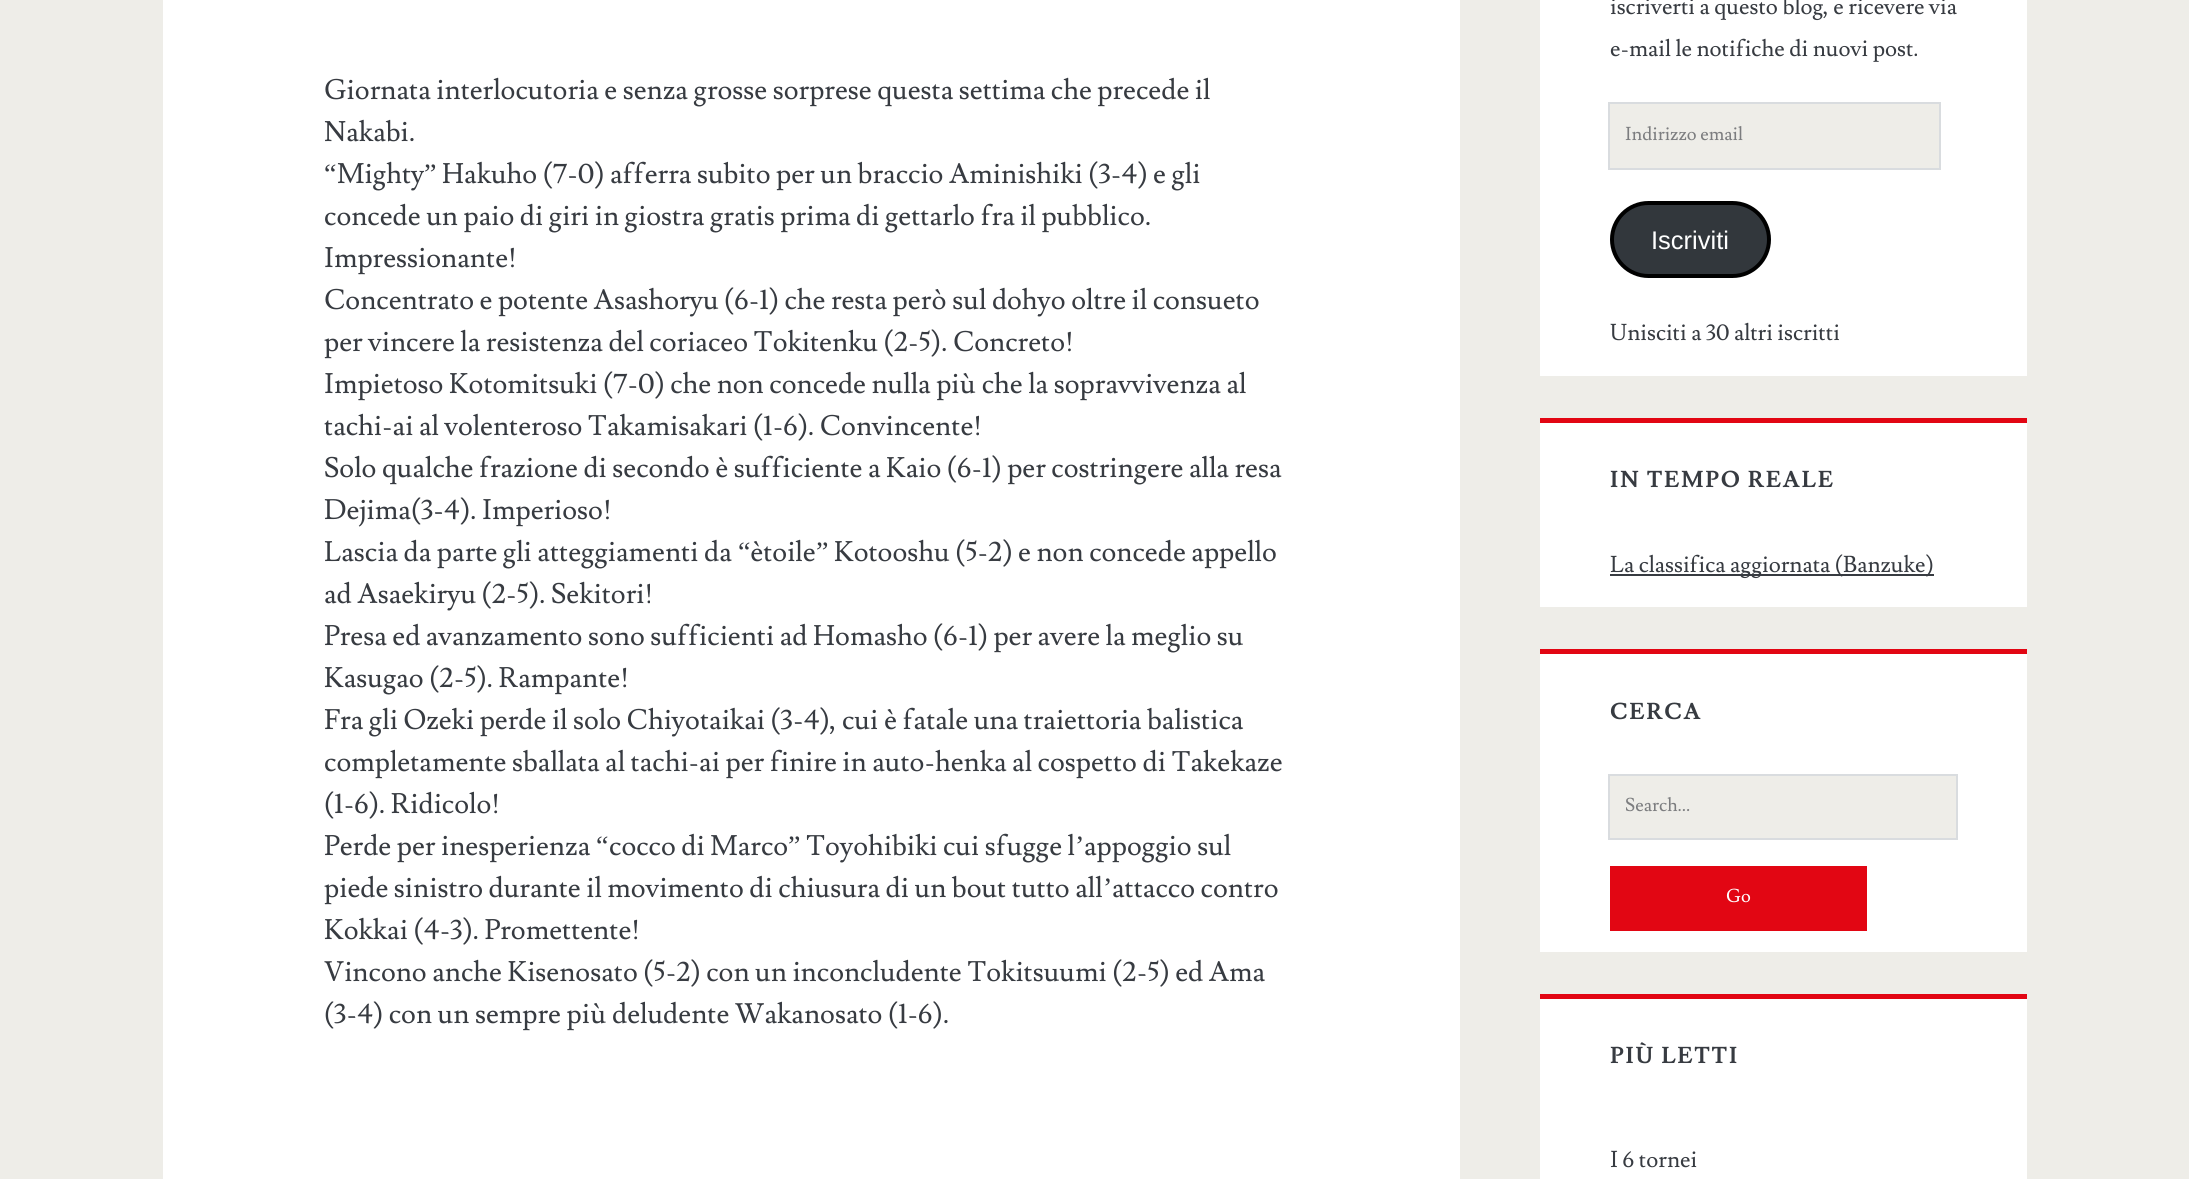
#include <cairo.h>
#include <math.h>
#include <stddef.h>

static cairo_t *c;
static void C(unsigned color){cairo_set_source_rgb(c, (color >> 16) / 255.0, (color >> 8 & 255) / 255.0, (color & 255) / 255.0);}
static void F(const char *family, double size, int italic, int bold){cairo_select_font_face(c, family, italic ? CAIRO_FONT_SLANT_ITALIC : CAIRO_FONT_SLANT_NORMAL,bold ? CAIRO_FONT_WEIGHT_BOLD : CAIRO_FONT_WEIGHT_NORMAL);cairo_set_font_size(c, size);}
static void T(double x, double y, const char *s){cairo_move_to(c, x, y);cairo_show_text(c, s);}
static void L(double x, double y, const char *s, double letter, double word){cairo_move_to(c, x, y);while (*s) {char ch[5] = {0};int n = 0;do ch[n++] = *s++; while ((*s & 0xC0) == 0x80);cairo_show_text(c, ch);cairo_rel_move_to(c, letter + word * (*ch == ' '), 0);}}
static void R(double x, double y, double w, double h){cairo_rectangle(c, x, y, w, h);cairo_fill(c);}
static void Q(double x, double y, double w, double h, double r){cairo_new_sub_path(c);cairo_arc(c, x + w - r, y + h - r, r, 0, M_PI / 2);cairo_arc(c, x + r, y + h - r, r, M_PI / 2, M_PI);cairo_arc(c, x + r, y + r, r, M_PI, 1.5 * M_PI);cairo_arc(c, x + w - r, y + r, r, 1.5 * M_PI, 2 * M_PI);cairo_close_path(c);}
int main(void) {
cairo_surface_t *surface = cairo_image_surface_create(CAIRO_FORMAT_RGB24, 2189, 1179);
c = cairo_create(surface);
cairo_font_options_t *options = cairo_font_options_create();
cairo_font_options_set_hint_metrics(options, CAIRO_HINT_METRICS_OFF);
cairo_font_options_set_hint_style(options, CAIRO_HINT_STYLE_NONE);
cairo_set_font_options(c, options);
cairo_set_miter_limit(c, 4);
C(0xeeede8);
cairo_paint(c);
C(0xffffff);
R(163,0,1297,1179);
F("Lusitana",28,0,0);
C(0x373b41);
T(324,99,"Giornata interlocutoria e senza grosse sorprese questa settima che precede il");
T(324,141,"Nakabi.");
F("Liberation Serif",28,0,0);
T(324,183,"“");
F("Lusitana",28,0,0);
T(337,183,"Mighty");
F("Liberation Serif",28,0,0);
T(424,183,"”");
F("Lusitana",28,0,0);
T(442,183,"Hakuho (7-0) afferra subito per un braccio Aminishiki (3-4) e gli");
T(324,225,"concede un paio di giri in giostra gratis prima di gettarlo fra il pubblico.");
T(324,267,"Impressionante!");
T(324,309,"Concentrato e potente Asashoryu (6-1) che resta però sul dohyo oltre il consueto");
T(324,351,"per vincere la resistenza del coriaceo Tokitenku (2-5). Concreto!");
T(324,393,"Impietoso Kotomitsuki (7-0) che non concede nulla più che la sopravvivenza al");
T(324,435,"tachi-ai al volenteroso Takamisakari (1-6). Convincente!");
T(324,477,"Solo qualche frazione di secondo è sufficiente a Kaio (6-1) per costringere alla resa");
T(324,519,"Dejima(3-4). Imperioso!");
T(324,561,"Lascia da parte gli atteggiamenti da");
F("Liberation Serif",28,0,0);
T(738,561,"“");
F("Lusitana",28,0,0);
T(750,561,"ètoile");
F("Liberation Serif",28,0,0);
T(816,561,"”");
F("Lusitana",28,0,0);
T(834,561,"Kotooshu (5-2) e non concede appello");
T(324,603,"ad Asaekiryu (2-5). Sekitori!");
T(324,645,"Presa ed avanzamento sono sufficienti ad Homasho (6-1) per avere la meglio su");
T(324,687,"Kasugao (2-5). Rampante!");
T(324,729,"Fra gli Ozeki perde il solo Chiyotaikai (3-4), cui è fatale una traiettoria balistica");
T(324,771,"completamente sballata al tachi-ai per finire in auto-henka al cospetto di Takekaze");
T(324,813,"(1-6). Ridicolo!");
T(324,855,"Perde per inesperienza");
F("Liberation Serif",28,0,0);
T(596,855,"“");
F("Lusitana",28,0,0);
T(609,855,"cocco di Marco");
F("Liberation Serif",28,0,0);
T(788,855,"”");
F("Lusitana",28,0,0);
T(806,855,"Toyohibiki cui sfugge l");
F("Liberation Serif",28,0,0);
T(1075,855,"’");
F("Lusitana",28,0,0);
T(1084,855,"appoggio sul");
T(324,897,"piede sinistro durante il movimento di chiusura di un bout tutto all");
F("Liberation Serif",28,0,0);
T(1103,897,"’");
F("Lusitana",28,0,0);
T(1112,897,"attacco contro");
T(324,939,"Kokkai (4-3). Promettente!");
T(324,981,"Vincono anche Kisenosato (5-2) con un inconcludente Tokitsuumi (2-5) ed Ama");
T(324,1023,"(3-4) con un sempre più deludente Wakanosato (1-6).");
C(0xffffff);
R(1540,0,487,376);
F("Lusitana",22.75,0,0);
C(0x373b41);
T(1610,14,"iscriverti a questo blog, e ricevere via");
T(1610,56,"e-mail le notifiche di nuovi post.");
C(0xeeede8);
R(1610,104,329,64);
cairo_rectangle(c,1609,103,331,66);
C(0xd9dcdf);
cairo_stroke(c);
F("Lusitana",18.5,0,0);
C(0x7c7d7f);
T(1625,140,"Indirizzo email");
C(0x32373c);
Q(1612,203,157,73,36.5);
cairo_fill_preserve(c);
C(0x000000);
cairo_set_line_width(c,4);
cairo_stroke(c);
F("Liberation Sans",25.5,0,0);
C(0xffffff);
T(1651,249,"Iscriviti");
F("Lusitana",22.75,0,0);
C(0x373b41);
T(1610,340,"Unisciti a 30 altri iscritti");
C(0xffffff);
R(1540,423,487,184);
C(0xe20613);
R(1540,418,487,5);
F("Lusitana",22.75,0,1);
C(0x373b41);
L(1610,487,"IN TEMPO REALE",1.75,0);
R(1610,574,324,2);
F("Lusitana",22.75,0,0);
T(1610,572,"La classifica aggiornata (Banzuke)");
C(0xffffff);
R(1540,654,487,298);
C(0xe20613);
R(1540,649,487,5);
F("Lusitana",22.75,0,1);
C(0x373b41);
L(1610,719,"CERCA",1.75,0);
C(0xeeede8);
R(1610,776,346,62);
cairo_rectangle(c,1609,775,348,64);
C(0xd9dcdf);
cairo_set_line_width(c,2);
cairo_stroke(c);
cairo_save(c);
cairo_rectangle(c,1626,793,303,24);
cairo_clip(c);
F("Lusitana",18.5,0,0);
C(0x7c7d7f);
T(1625,811,"Search...");
cairo_restore(c);
C(0xe20613);
R(1610,866,257,65);
F("Lusitana",18.5,0,0);
C(0xffffff);
T(1726,902,"Go");
R(1540,999,487,180);
C(0xe20613);
R(1540,994,487,5);
F("Lusitana",22.75,0,1);
C(0x373b41);
L(1610,1063,"PIÙ LETTI",1.75,0);
F("Lusitana",22.75,0,0);
T(1610,1167,"I 6 tornei");
cairo_surface_write_to_png(surface, "o.png");
cairo_font_options_destroy(options);
cairo_destroy(c);
cairo_surface_destroy(surface);
return 0;
}
